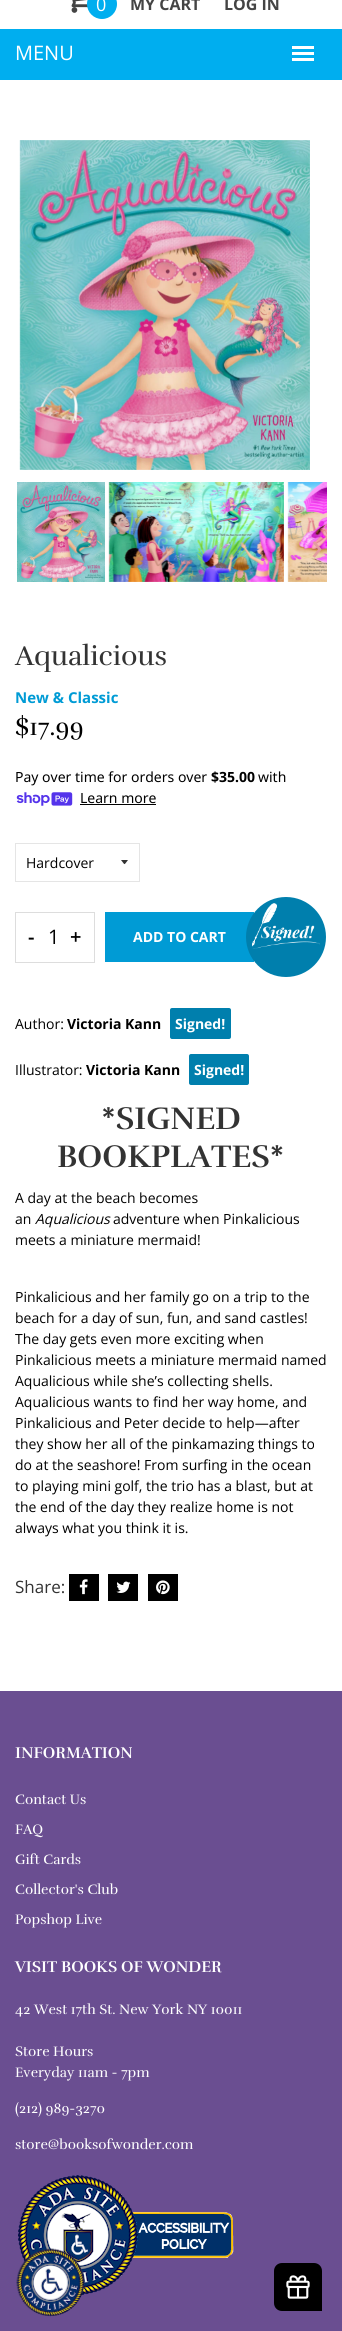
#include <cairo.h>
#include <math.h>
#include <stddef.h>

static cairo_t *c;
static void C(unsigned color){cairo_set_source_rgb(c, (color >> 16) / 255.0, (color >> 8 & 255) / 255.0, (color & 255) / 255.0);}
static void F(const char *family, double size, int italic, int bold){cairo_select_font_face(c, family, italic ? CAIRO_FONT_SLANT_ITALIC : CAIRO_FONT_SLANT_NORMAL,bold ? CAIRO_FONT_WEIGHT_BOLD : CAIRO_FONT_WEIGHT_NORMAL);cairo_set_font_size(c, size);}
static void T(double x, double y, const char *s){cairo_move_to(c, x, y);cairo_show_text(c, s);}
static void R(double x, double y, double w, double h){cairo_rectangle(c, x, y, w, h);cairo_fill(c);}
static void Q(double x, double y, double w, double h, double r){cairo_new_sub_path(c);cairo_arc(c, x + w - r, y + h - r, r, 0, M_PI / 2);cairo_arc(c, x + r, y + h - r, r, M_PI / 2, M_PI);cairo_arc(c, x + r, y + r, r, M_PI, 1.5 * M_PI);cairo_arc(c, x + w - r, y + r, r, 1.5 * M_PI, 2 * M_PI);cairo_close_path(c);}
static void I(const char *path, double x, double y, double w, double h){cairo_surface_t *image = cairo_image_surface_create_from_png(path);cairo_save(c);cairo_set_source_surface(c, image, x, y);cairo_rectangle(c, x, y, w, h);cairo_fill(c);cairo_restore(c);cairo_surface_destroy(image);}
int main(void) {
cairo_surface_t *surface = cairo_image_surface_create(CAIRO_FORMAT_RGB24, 342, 2331);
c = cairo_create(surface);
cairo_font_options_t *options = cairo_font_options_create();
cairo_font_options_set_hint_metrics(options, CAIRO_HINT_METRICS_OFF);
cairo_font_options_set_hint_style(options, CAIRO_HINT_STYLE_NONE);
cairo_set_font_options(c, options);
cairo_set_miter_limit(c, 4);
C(0xffffff);
cairo_paint(c);
I("1.png",71,0,17,13);
C(0x00aeef);
cairo_arc(c,102,4,15,0,2 * M_PI);
cairo_fill(c);
F("Open Sans",18,0,0);
C(0xffffff);
T(96,11,"0");
F("Open Sans",16,0,1);
C(0x444444);
T(130,10,"MY CART");
T(224,10,"LOG IN");
C(0x00aeef);
R(0,29,342,51);
F("Open Sans",20,0,0);
C(0xffffff);
T(15,60,"MENU");
R(292,46,22,3);
R(292,52,22,3);
R(292,58,22,3);
I("2.png",19,140,291,330);
I("3.png",17,482,88,100);
I("4.png",108,482,176,100);
I("5.png",287,482,40,100);
F("Open Sans",40,0,0);
C(0xe39d9f);
T(311,560,"›");
F("Rufina",28,0,0);
C(0x333333);
T(15,665,"Aqualicious");
F("Open Sans",15,0,1);
C(0x009bd5);
T(15,703,"New & Classic");
F("Rufina",25,0,0);
C(0x000000);
T(15,735,"$17.99");
F("Noto Sans",14,0,0);
T(15,782,"Pay over time for orders over");
F("Noto Sans",14,0,1);
T(211,782,"$35.00");
F("Noto Sans",14,0,0);
T(258,782,"with");
I("6.png",16,792,57,14);
T(80,803,"Learn more");
R(80,804,76,1);
C(0x333333);
cairo_new_path(c);
cairo_move_to(c,121,860);
cairo_curve_to(c,125.5,865.5,123.5,865.5,128,860);
cairo_close_path(c);
cairo_fill(c);
cairo_rectangle(c,15.5,843.5,124,38);
C(0xe5e5e5);
cairo_set_line_width(c,1);
cairo_stroke(c);
F("Open Sans",14,0,0);
C(0x000000);
T(26,868,"Hardcover");
cairo_rectangle(c,15.5,912.5,79,50);
C(0xdddddd);
cairo_stroke(c);
F("Open Sans SemiBold",20,0,0);
C(0x000000);
T(28,944,"-");
F("Open Sans",20,0,0);
T(48,944,"1");
F("Open Sans SemiBold",20,0,0);
T(70,944,"+");
C(0x009bd5);
R(105,912,149,50);
F("Open Sans",14,0,1);
C(0xffffff);
T(133,942,"ADD TO CART");
C(0x007fad);
cairo_new_path(c);
cairo_arc(c,286,937,40,0,2 * M_PI);
cairo_fill(c);
I("7.png",252,903,68,46);
F("Open Sans",14,0,0);
C(0x000000);
T(15,1029,"Author:");
F("Open Sans",14,0,1);
T(67,1029,"Victoria Kann");
C(0x007fad);
Q(170,1008,61,31,2);
cairo_fill(c);
C(0xffffff);
T(175,1029,"Signed!");
F("Open Sans",14,0,0);
C(0x000000);
T(15,1075,"Illustrator:");
F("Open Sans",14,0,1);
T(86,1075,"Victoria Kann");
C(0x007fad);
Q(189,1054,60,31,2);
cairo_fill(c);
C(0xffffff);
T(194,1075,"Signed!");
F("Rufina",32,0,1);
C(0x333333);
T(101,1129,"*SIGNED");
T(57,1167,"BOOKPLATES*");
F("Open Sans",14,0,0);
C(0x000000);
T(15,1203,"A day at the beach becomes");
T(15,1224,"an");
F("Open Sans",14,1,0);
T(35,1224,"Aqualicious");
F("Open Sans",14,0,0);
T(113,1224,"adventure when Pinkalicious");
T(15,1245,"meets a miniature mermaid!");
T(15,1302,"Pinkalicious and her family go on a trip to the");
T(15,1323,"beach for a day of sun, fun, and sand castles!");
T(15,1344,"The day gets even more exciting when");
T(15,1365,"Pinkalicious meets a miniature mermaid named");
T(15,1386,"Aqualicious while she’s collecting shells.");
T(15,1407,"Aqualicious wants to find her way home, and");
T(15,1428,"Pinkalicious and Peter decide to help—after");
T(15,1449,"they show her all of the pinkamazing things to");
T(15,1470,"do at the seashore! From surfing in the ocean");
T(15,1491,"to playing mini golf, the trio has a blast, but at");
T(15,1512,"the end of the day they realize home is not");
T(15,1533,"always what you think it is.");
F("Open Sans",17,0,0);
C(0x333333);
T(15,1593,"Share:");
C(0x000000);
R(69,1574,30,27);
I("8.png",79,1579,9,16);
R(108,1574,30,27);
I("9.png",116,1581,15,12);
R(148,1574,30,27);
I("10.png",156,1580,14,15);
C(0x6a4e91);
R(0,1691,342,640);
F("Rufina",16,0,1);
C(0xffffff);
T(15,1758,"INFORMATION");
F("Rufina",14,0,0);
T(15,1804,"Contact Us");
T(15,1834,"FAQ");
T(15,1864,"Gift Cards");
T(15,1894,"Collector's Club");
T(15,1924,"Popshop Live");
F("Rufina",16,0,1);
T(15,1972,"VISIT BOOKS OF WONDER");
F("Rufina",14,0,0);
T(15,2014,"42 West 17th St. New York NY 10011");
T(15,2056,"Store Hours");
T(15,2077,"Everyday 11am - 7pm");
T(15,2113,"(212) 989-3270");
T(15,2149,"store@booksofwonder.com");
I("11.png",16,2175,218,122);
I("12.png",16,2248,69,69);
C(0x000000);
cairo_new_path(c);
cairo_move_to(c,282,2263);
cairo_line_to(c,314,2263);
cairo_curve_to(c,318.5,2263,322,2266.5,322,2271);
cairo_line_to(c,322,2311);
cairo_line_to(c,282,2311);
cairo_curve_to(c,277.5,2311,274,2307.5,274,2303);
cairo_line_to(c,274,2271);
cairo_curve_to(c,274,2266.5,277.5,2263,282,2263);
cairo_close_path(c);
cairo_fill(c);
I("13.png",286,2275,24,24);
cairo_surface_write_to_png(surface, "o.png");
cairo_font_options_destroy(options);
cairo_destroy(c);
cairo_surface_destroy(surface);
return 0;
}
